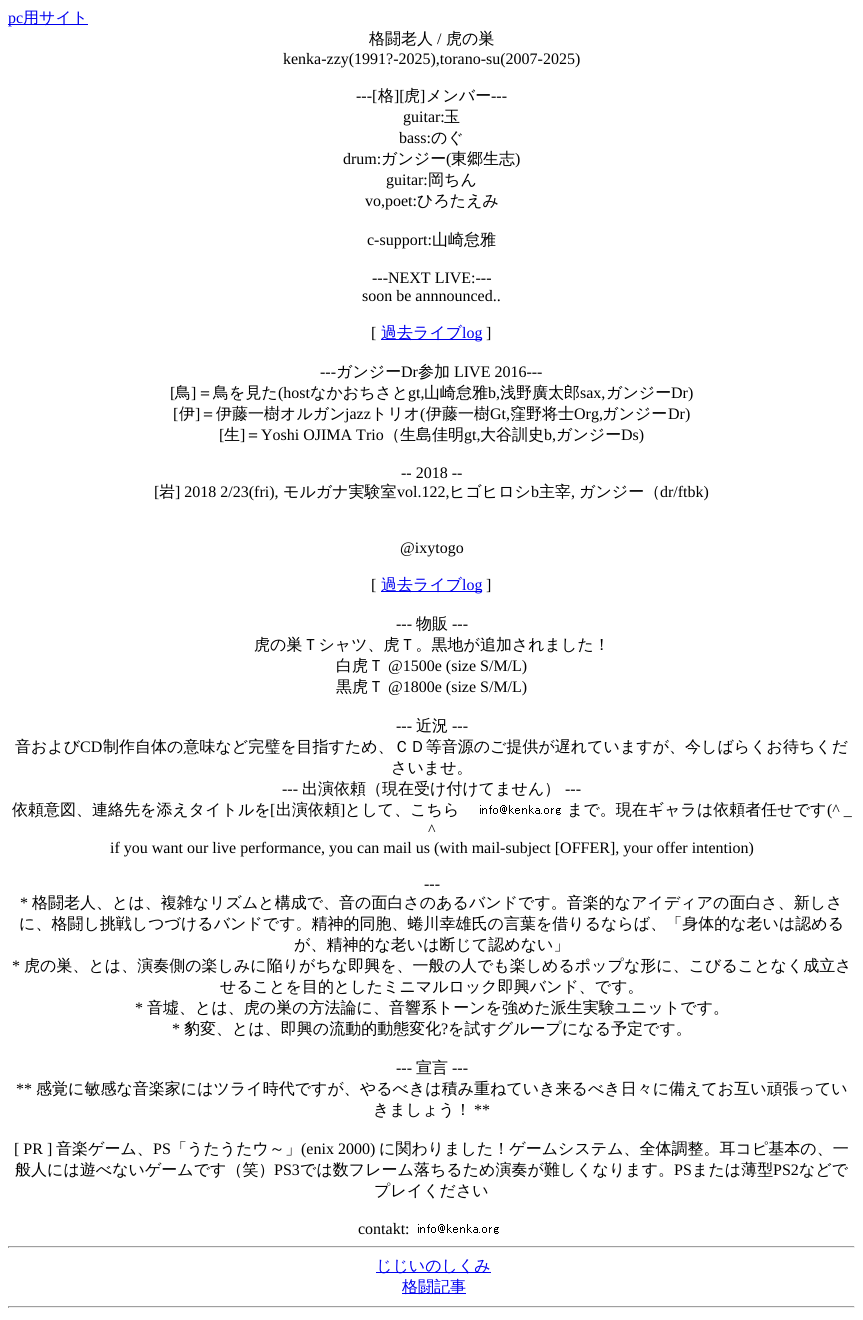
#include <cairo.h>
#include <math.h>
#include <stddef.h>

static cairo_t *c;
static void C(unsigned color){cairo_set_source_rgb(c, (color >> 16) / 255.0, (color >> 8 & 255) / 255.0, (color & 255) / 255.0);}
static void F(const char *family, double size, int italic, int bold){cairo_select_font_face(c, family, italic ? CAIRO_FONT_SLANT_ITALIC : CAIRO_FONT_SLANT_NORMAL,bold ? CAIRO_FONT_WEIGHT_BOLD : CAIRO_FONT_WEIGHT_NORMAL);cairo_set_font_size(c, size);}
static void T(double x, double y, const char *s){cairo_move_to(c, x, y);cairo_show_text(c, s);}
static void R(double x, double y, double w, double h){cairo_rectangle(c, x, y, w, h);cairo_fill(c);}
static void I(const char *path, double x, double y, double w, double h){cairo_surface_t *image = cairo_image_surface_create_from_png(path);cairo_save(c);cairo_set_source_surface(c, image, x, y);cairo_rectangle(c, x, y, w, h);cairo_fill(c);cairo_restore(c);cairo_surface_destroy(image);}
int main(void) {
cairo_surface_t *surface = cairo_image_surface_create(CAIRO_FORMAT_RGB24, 863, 1320);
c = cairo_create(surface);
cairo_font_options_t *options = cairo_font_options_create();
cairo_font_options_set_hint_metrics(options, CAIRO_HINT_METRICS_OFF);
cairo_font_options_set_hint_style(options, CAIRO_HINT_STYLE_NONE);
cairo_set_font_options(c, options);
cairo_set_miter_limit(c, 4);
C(0xffffff);
cairo_paint(c);
C(0x0000ee);
R(8,24,80,1);
F("Liberation Serif",16,0,0);
T(8,23,"pc");
F("WenQuanYi Zen Hei Medium",16,0,0);
T(23,23,"用サイト");
C(0x000000);
T(369,44,"格闘老人");
F("Liberation Serif",16,0,0);
T(437,44,"/");
F("WenQuanYi Zen Hei Medium",16,0,0);
T(446,44,"虎の巣");
F("Liberation Serif",16,0,0);
T(283,64,"kenka-zzy(1991?-2025),torano-su(2007-2025)");
T(356,101,"---[");
F("WenQuanYi Zen Hei Medium",16,0,0);
T(378,101,"格");
F("Liberation Serif",16,0,0);
T(394,101,"][");
F("WenQuanYi Zen Hei Medium",16,0,0);
T(404,101,"虎");
F("Liberation Serif",16,0,0);
T(420,101,"]");
F("WenQuanYi Zen Hei Medium",16,0,0);
T(426,101,"メンバー");
F("Liberation Serif",16,0,0);
T(491,101,"---");
T(403,122,"guitar:");
F("WenQuanYi Zen Hei Medium",16,0,0);
T(444,122,"玉");
F("Liberation Serif",16,0,0);
T(399,143,"bass:");
F("WenQuanYi Zen Hei Medium",16,0,0);
T(431,143,"のぐ");
F("Liberation Serif",16,0,0);
T(343,164,"drum:");
F("WenQuanYi Zen Hei Medium",16,0,0);
T(381,164,"ガンジー");
F("Liberation Serif",16,0,0);
T(446,164,"(");
F("WenQuanYi Zen Hei Medium",16,0,0);
T(451,164,"東郷生志");
F("Liberation Serif",16,0,0);
T(515,164,")");
T(386,185,"guitar:");
F("WenQuanYi Zen Hei Medium",16,0,0);
T(428,185,"岡ちん");
F("Liberation Serif",16,0,0);
T(365,206,"vo,poet:");
F("WenQuanYi Zen Hei Medium",16,0,0);
T(417,206,"ひろたえみ");
F("Liberation Serif",16,0,0);
T(367,245,"c-support:");
F("WenQuanYi Zen Hei Medium",16,0,0);
T(432,245,"山崎怠雅");
F("Liberation Serif",16,0,0);
T(372,283,"---NEXT LIVE:---");
T(362,301,"soon be annnounced..");
T(371,338,"[");
C(0x0000ee);
R(381,339,101,1);
F("WenQuanYi Zen Hei Medium",16,0,0);
T(381,338,"過去ライブ");
F("Liberation Serif",16,0,0);
T(462,338,"log");
C(0x000000);
T(486,338,"]");
T(320,377,"---");
F("WenQuanYi Zen Hei Medium",16,0,0);
T(336,377,"ガンジー");
F("Liberation Serif",16,0,0);
T(401,377,"Dr");
F("WenQuanYi Zen Hei Medium",16,0,0);
T(418,377,"参加");
F("Liberation Serif",16,0,0);
T(454,377,"LIVE 2016---");
T(170,398,"[");
F("WenQuanYi Zen Hei Medium",16,0,0);
T(175,398,"鳥");
F("Liberation Serif",16,0,0);
T(191,398,"]");
F("WenQuanYi Zen Hei Medium",16,0,0);
T(197,398,"＝鳥を見た");
F("Liberation Serif",16,0,0);
T(278,398,"(host");
F("WenQuanYi Zen Hei Medium",16,0,0);
T(310,398,"なかおちさと");
F("Liberation Serif",16,0,0);
T(408,398,"gt,");
F("WenQuanYi Zen Hei Medium",16,0,0);
T(424,398,"山崎怠雅");
F("Liberation Serif",16,0,0);
T(488,398,"b,");
F("WenQuanYi Zen Hei Medium",16,0,0);
T(500,398,"浅野廣太郎");
F("Liberation Serif",16,0,0);
T(580,398,"sax,");
F("WenQuanYi Zen Hei Medium",16,0,0);
T(606,398,"ガンジー");
F("Liberation Serif",16,0,0);
T(671,398,"Dr)");
T(173,419,"[");
F("WenQuanYi Zen Hei Medium",16,0,0);
T(179,419,"伊");
F("Liberation Serif",16,0,0);
T(195,419,"]");
F("WenQuanYi Zen Hei Medium",16,0,0);
T(200,419,"＝伊藤一樹オルガン");
F("Liberation Serif",16,0,0);
T(345,419,"jazz");
F("WenQuanYi Zen Hei Medium",16,0,0);
T(371,419,"トリオ");
F("Liberation Serif",16,0,0);
T(420,419,"(");
F("WenQuanYi Zen Hei Medium",16,0,0);
T(426,419,"伊藤一樹");
F("Liberation Serif",16,0,0);
T(490,419,"Gt,");
F("WenQuanYi Zen Hei Medium",16,0,0);
T(510,419,"窪野将士");
F("Liberation Serif",16,0,0);
T(574,419,"Org,");
F("WenQuanYi Zen Hei Medium",16,0,0);
T(602,419,"ガンジー");
F("Liberation Serif",16,0,0);
T(668,419,"Dr)");
T(219,440,"[");
F("WenQuanYi Zen Hei Medium",16,0,0);
T(224,440,"生");
F("Liberation Serif",16,0,0);
T(240,440,"]");
F("WenQuanYi Zen Hei Medium",16,0,0);
T(245,440,"＝");
F("Liberation Serif",16,0,0);
T(261,440,"Yoshi OJIMA Trio");
F("WenQuanYi Zen Hei Medium",16,0,0);
T(384,440,"（生島佳明");
F("Liberation Serif",16,0,0);
T(464,440,"gt,");
F("WenQuanYi Zen Hei Medium",16,0,0);
T(480,440,"大谷訓史");
F("Liberation Serif",16,0,0);
T(544,440,"b,");
F("WenQuanYi Zen Hei Medium",16,0,0);
T(556,440,"ガンジー");
F("Liberation Serif",16,0,0);
T(621,440,"Ds)");
T(401,478,"-- 2018 --");
T(154,497,"[");
F("WenQuanYi Zen Hei Medium",16,0,0);
T(159,497,"岩");
F("Liberation Serif",16,0,0);
T(175,497,"] 2018 2/23(fri),");
F("WenQuanYi Zen Hei Medium",16,0,0);
T(283,497,"モルガナ実験室");
F("Liberation Serif",16,0,0);
T(397,497,"vol.122,");
F("WenQuanYi Zen Hei Medium",16,0,0);
T(449,497,"ヒゴヒロシ");
F("Liberation Serif",16,0,0);
T(531,497,"b");
F("WenQuanYi Zen Hei Medium",16,0,0);
T(539,497,"主宰");
F("Liberation Serif",16,0,0);
T(571,497,",");
F("WenQuanYi Zen Hei Medium",16,0,0);
T(579,497,"ガンジー（");
F("Liberation Serif",16,0,0);
T(660,497,"dr/ftbk)");
T(400,553,"@ixytogo");
T(371,590,"[");
C(0x0000ee);
R(381,591,101,1);
F("WenQuanYi Zen Hei Medium",16,0,0);
T(381,590,"過去ライブ");
F("Liberation Serif",16,0,0);
T(462,590,"log");
C(0x000000);
T(486,590,"]");
T(396,629,"---");
F("WenQuanYi Zen Hei Medium",16,0,0);
T(416,629,"物販");
F("Liberation Serif",16,0,0);
T(452,629,"---");
F("WenQuanYi Zen Hei Medium",16,0,0);
T(254,650,"虎の巣Ｔシャツ、虎Ｔ。黒地が追加されました！");
T(336,671,"白虎Ｔ");
F("Liberation Serif",16,0,0);
T(388,671,"@1500e (size S/M/L)");
F("WenQuanYi Zen Hei Medium",16,0,0);
T(336,692,"黒虎Ｔ");
F("Liberation Serif",16,0,0);
T(388,692,"@1800e (size S/M/L)");
T(396,731,"---");
F("WenQuanYi Zen Hei Medium",16,0,0);
T(416,731,"近況");
F("Liberation Serif",16,0,0);
T(452,731,"---");
F("WenQuanYi Zen Hei Medium",16,0,0);
T(15,752,"音および");
F("Liberation Serif",16,0,0);
T(80,752,"CD");
F("WenQuanYi Zen Hei Medium",16,0,0);
T(103,752,"制作自体の意味など完璧を目指すため、ＣＤ等音源のご提供が遅れていますが、今しばらくお待ちくだ");
T(391,773,"さいませ。");
F("Liberation Serif",16,0,0);
T(282,794,"---");
F("WenQuanYi Zen Hei Medium",16,0,0);
T(302,794,"出演依頼（現在受け付けてません）");
F("Liberation Serif",16,0,0);
T(565,794,"---");
F("WenQuanYi Zen Hei Medium",16,0,0);
T(12,815,"依頼意図、連絡先を添えタイトルを");
F("Liberation Serif",16,0,0);
T(270,815,"[");
F("WenQuanYi Zen Hei Medium",16,0,0);
T(276,815,"出演依頼");
F("Liberation Serif",16,0,0);
T(340,815,"]");
F("WenQuanYi Zen Hei Medium",16,0,0);
T(345,815,"として、こちら");
I("1.png",480,805,81,10);
T(567,815,"まで。現在ギャラは依頼者任せです");
F("Liberation Serif",16,0,0);
T(827,815,"(^ _");
T(428,835,"^");
T(110,853,"if you want our live performance, you can mail us (with mail-subject [OFFER], your offer intention)");
T(424,889,"---");
T(20,908,"*");
F("WenQuanYi Zen Hei Medium",16,0,0);
T(32,908,"格闘老人、とは、複雑なリズムと構成で、音の面白さのあるバンドです。音楽的なアイディアの面白さ、新しさ");
T(19,929,"に、格闘し挑戦しつづけるバンドです。精神的同胞、蜷川幸雄氏の言葉を借りるならば、「身体的な老いは認める");
T(294,950,"が、精神的な老いは断じて認めない」");
F("Liberation Serif",16,0,0);
T(12,971,"*");
F("WenQuanYi Zen Hei Medium",16,0,0);
T(24,971,"虎の巣、とは、演奏側の楽しみに陥りがちな即興を、一般の人でも楽しめるポップな形に、こびることなく成立さ");
T(220,992,"せることを目的としたミニマルロック即興バンド、です。");
F("Liberation Serif",16,0,0);
T(135,1013,"*");
F("WenQuanYi Zen Hei Medium",16,0,0);
T(147,1013,"音墟、とは、虎の巣の方法論に、音響系トーンを強めた派生実験ユニットです。");
F("Liberation Serif",16,0,0);
T(172,1034,"*");
F("WenQuanYi Zen Hei Medium",16,0,0);
T(184,1034,"豹変、とは、即興の流動的動態変化");
F("Liberation Serif",16,0,0);
T(441,1034,"?");
F("WenQuanYi Zen Hei Medium",16,0,0);
T(448,1034,"を試すグループになる予定です。");
F("Liberation Serif",16,0,0);
T(396,1073,"---");
F("WenQuanYi Zen Hei Medium",16,0,0);
T(416,1073,"宣言");
F("Liberation Serif",16,0,0);
T(452,1073,"---");
T(16,1094,"**");
F("WenQuanYi Zen Hei Medium",16,0,0);
T(36,1094,"感覚に敏感な音楽家にはツライ時代ですが、やるべきは積み重ねていき来るべき日々に備えてお互い頑張ってい");
T(373,1115,"きましょう！");
F("Liberation Serif",16,0,0);
T(474,1115,"**");
T(14,1154,"[ PR ]");
F("WenQuanYi Zen Hei Medium",16,0,0);
T(56,1154,"音楽ゲーム、");
F("Liberation Serif",16,0,0);
T(153,1154,"PS");
F("WenQuanYi Zen Hei Medium",16,0,0);
T(171,1154,"「うたうたウ～」");
F("Liberation Serif",16,0,0);
T(301,1154,"(enix 2000)");
F("WenQuanYi Zen Hei Medium",16,0,0);
T(379,1154,"に関わりました！ゲームシステム、全体調整。耳コピ基本の、一");
T(15,1175,"般人には遊べないゲームです（笑）");
F("Liberation Serif",16,0,0);
T(274,1175,"PS3");
F("WenQuanYi Zen Hei Medium",16,0,0);
T(300,1175,"では数フレーム落ちるため演奏が難しくなります。");
F("Liberation Serif",16,0,0);
T(674,1175,"PS");
F("WenQuanYi Zen Hei Medium",16,0,0);
T(692,1175,"または薄型");
F("Liberation Serif",16,0,0);
T(773,1175,"PS2");
F("WenQuanYi Zen Hei Medium",16,0,0);
T(799,1175,"などで");
T(374,1196,"プレイください");
F("Liberation Serif",16,0,0);
T(358,1234,"contakt:");
I("1.png",418,1224,81,10);
C(0x9f9f9f);
R(8,1246,847,1);
C(0xeeeeee);
R(854,1246,1,2);
R(8,1247,847,1);
C(0x9f9f9f);
R(8,1246,1,2);
C(0x0000ee);
R(376,1272,115,1);
F("WenQuanYi Zen Hei Medium",16,0,0);
T(376,1271,"じじいのしくみ");
R(402,1293,64,1);
T(402,1292,"格闘記事");
C(0x9f9f9f);
R(8,1306,847,1);
C(0xeeeeee);
R(854,1306,1,2);
R(8,1307,847,1);
C(0x9f9f9f);
R(8,1306,1,2);
cairo_surface_write_to_png(surface, "o.png");
cairo_font_options_destroy(options);
cairo_destroy(c);
cairo_surface_destroy(surface);
return 0;
}
